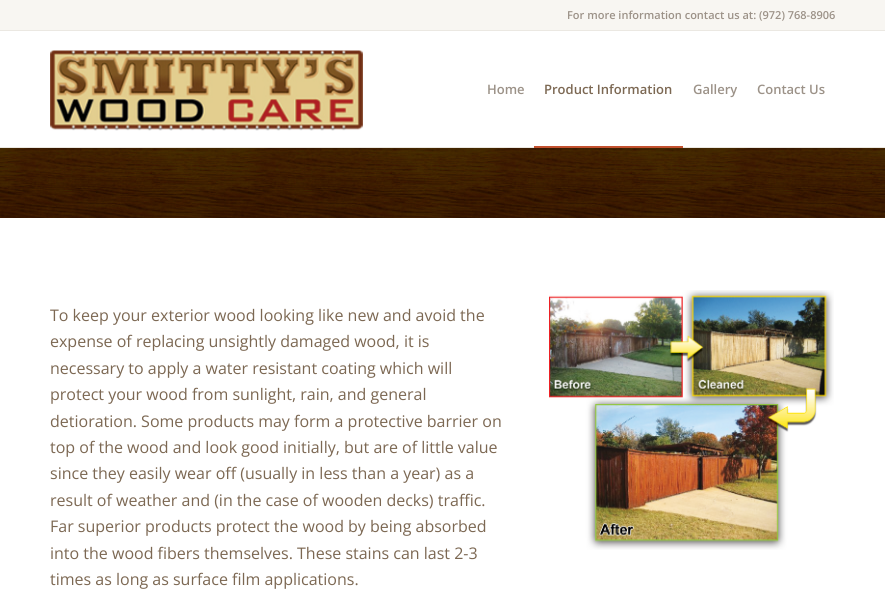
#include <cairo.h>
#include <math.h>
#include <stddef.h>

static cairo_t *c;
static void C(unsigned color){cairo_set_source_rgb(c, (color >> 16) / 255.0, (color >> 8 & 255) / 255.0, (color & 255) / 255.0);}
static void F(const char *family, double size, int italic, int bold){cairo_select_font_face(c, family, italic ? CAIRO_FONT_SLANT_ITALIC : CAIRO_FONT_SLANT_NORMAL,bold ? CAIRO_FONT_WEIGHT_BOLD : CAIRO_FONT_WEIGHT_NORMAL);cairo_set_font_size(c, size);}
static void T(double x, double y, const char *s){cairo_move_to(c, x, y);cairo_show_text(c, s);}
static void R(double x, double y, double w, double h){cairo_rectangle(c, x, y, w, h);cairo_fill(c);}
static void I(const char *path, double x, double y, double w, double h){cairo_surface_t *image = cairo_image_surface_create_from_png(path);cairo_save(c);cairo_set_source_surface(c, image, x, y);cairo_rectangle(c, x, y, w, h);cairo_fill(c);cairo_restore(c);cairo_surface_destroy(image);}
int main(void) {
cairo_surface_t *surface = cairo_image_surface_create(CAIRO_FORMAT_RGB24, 885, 612);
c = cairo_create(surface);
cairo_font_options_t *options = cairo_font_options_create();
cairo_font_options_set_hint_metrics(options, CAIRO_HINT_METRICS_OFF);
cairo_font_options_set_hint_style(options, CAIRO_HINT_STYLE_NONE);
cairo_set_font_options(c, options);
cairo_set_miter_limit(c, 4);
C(0xffffff);
cairo_paint(c);
C(0xf8f6f2);
R(0,0,885,30);
C(0xebe8e2);
R(0,30,885,1);
F("Open Sans SemiBold",11,0,0);
C(0x9c9288);
T(567,19,"For more information contact us at: (972) 768-8906");
C(0xebe8e2);
R(0,147,885,1);
I("1.png",50,50,313,81);
F("Open Sans SemiBold",13,0,0);
C(0x9c9288);
T(487,94,"Home");
C(0x7c6853);
T(544,94,"Product Information");
C(0xc3512f);
R(534,146,149,2);
C(0x9c9288);
T(693,94,"Gallery");
T(757,94,"Contact Us");
I("2.png",0,148,885,70);
F("Open Sans",16,0,0);
C(0x7c6853);
T(50,321,"To keep your exterior wood looking like new and avoid the");
T(50,347,"expense of replacing unsightly damaged wood, it is");
T(50,374,"necessary to apply a water resistant coating which will");
T(50,400,"protect your wood from sunlight, rain, and general");
T(50,427,"detioration. Some products may form a protective barrier on");
T(50,453,"top of the wood and look good initially, but are of little value");
T(50,479,"since they easily wear off (usually in less than a year) as a");
T(50,506,"result of weather and (in the case of wooden decks) traffic.");
T(50,532,"Far superior products protect the wood by being absorbed");
T(50,559,"into the wood fibers themselves. These stains can last 2-3");
T(50,585,"times as long as surface film applications.");
I("3.png",549,290,285,260);
cairo_surface_write_to_png(surface, "o.png");
cairo_font_options_destroy(options);
cairo_destroy(c);
cairo_surface_destroy(surface);
return 0;
}
